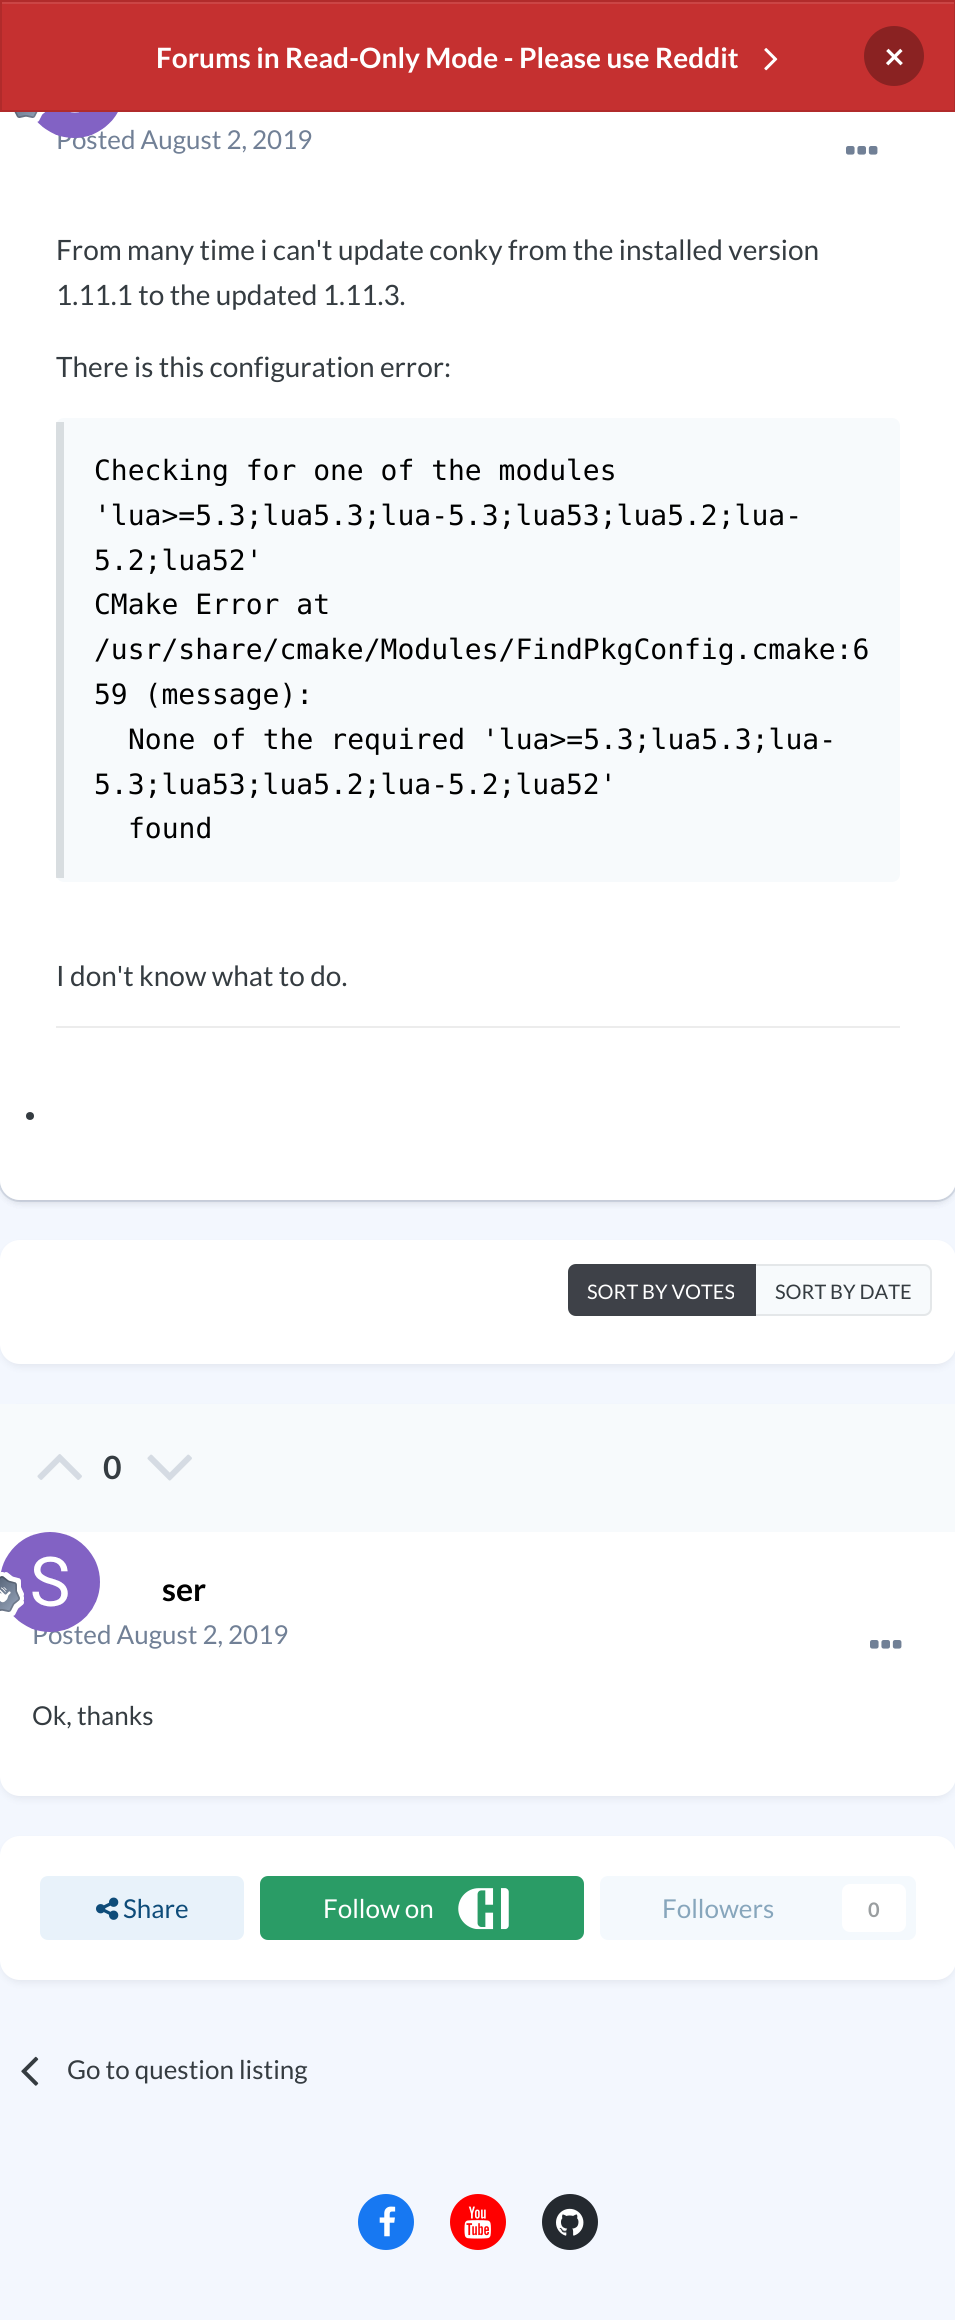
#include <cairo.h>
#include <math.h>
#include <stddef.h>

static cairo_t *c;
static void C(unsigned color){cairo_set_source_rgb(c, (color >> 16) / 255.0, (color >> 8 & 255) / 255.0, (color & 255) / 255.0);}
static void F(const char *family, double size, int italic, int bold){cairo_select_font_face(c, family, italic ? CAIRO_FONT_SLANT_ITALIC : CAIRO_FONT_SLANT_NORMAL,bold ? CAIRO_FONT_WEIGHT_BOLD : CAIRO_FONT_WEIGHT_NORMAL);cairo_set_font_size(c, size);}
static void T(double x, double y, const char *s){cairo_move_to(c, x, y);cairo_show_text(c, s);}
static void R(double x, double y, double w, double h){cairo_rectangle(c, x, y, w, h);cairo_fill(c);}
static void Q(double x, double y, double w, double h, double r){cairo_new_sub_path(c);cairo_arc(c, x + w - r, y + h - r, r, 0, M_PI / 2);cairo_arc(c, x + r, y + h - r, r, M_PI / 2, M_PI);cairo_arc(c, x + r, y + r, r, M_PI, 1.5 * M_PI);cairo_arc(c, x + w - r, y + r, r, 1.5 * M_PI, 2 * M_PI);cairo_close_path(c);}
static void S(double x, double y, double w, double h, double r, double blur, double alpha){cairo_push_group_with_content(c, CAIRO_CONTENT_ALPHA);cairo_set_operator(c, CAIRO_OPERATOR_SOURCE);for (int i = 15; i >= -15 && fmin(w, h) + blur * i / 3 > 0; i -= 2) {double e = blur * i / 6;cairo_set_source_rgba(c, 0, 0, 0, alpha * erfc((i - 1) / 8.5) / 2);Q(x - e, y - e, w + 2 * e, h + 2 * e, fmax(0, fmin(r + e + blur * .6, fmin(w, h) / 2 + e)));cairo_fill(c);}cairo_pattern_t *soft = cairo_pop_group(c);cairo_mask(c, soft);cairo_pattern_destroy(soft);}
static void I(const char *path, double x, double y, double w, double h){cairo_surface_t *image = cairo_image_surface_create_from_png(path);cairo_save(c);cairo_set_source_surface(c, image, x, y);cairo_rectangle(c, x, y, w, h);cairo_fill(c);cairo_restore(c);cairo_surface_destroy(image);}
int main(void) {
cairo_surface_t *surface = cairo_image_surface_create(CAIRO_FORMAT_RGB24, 955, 2320);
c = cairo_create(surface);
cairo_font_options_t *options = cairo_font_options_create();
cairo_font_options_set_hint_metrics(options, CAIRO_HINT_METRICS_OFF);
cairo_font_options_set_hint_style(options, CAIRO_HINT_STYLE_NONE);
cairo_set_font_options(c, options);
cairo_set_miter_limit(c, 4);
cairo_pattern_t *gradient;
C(0xffffff);
cairo_paint(c);
gradient = cairo_pattern_create_linear(478,-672,478,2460);
cairo_pattern_add_color_stop_rgba(gradient,0,0.69,0.714,0.839,1);
cairo_pattern_add_color_stop_rgba(gradient,.17,0.953,0.969,0.996,1);
cairo_set_source(c,gradient);
cairo_pattern_destroy(gradient);
R(0,1180,955,1140);
C(0x2d3748);
S(2,-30,952,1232,18,4,.1);
S(2,44,952,1158,18,4,.1);
Q(-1,37,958,1164,21);
cairo_set_source_rgba(c,0.443,0.502,0.588,0.2);
cairo_stroke(c);
C(0xffffff);
Q(0,38,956,1162,20);
cairo_fill(c);
C(0xc53030);
R(2,4,952,106);
C(0xcb4545);
R(2,2,952,2);
cairo_rectangle(c,1,1,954,110);
C(0xb12b2b);
cairo_stroke(c);
F("Lato",28,0,1);
C(0xffffff);
T(156,68,"Forums in Read-Only Mode - Please use Reddit");
I("1.png",764,48,14,23);
C(0x8a2222);
cairo_arc(c,894,56,30,0,2 * M_PI);
cairo_fill(c);
F("Lato",36,0,1);
C(0xffffff);
T(884,69,"×");
F("Lato",26,0,0);
C(0x718096);
T(56,149,"Posted August 2, 2019");
I("3.png",37,112,81,26);
I("2.png",8,112,37,10);
I("4.png",846,146,32,9);
F("Lato",28,0,0);
C(0x353c41);
T(56,260,"From many time i can't update conky from the installed version");
T(56,305,"1.11.1 to the updated 1.11.3.");
T(56,377,"There is this configuration error:");
C(0xf7fafc);
Q(56,418,844,464,8);
cairo_fill(c);
cairo_set_source_rgba(c,0.176,0.216,0.282,0.15);
R(56,422,8,456);
F("DejaVu Sans Mono",28,0,0);
C(0x000000);
T(94,480,"Checking for one of the modules");
T(94,525,"'lua>=5.3;lua5.3;lua-5.3;lua53;lua5.2;lua-");
T(94,570,"5.2;lua52'");
T(94,614,"CMake Error at");
T(94,659,"/usr/share/cmake/Modules/FindPkgConfig.cmake:6");
T(94,704,"59 (message):");
T(128,749,"None of the required 'lua>=5.3;lua5.3;lua-");
T(94,794,"5.3;lua53;lua5.2;lua-5.2;lua52'");
T(128,838,"found");
F("Lato",28,0,0);
C(0x353c41);
T(56,986,"I don't know what to do.");
C(0xececec);
R(56,1026,844,2);
C(0x353c41);
cairo_new_path(c);
cairo_arc(c,30,1116,4,0,2 * M_PI);
cairo_fill(c);
C(0x2d3748);
S(2,1246,952,120,18,4,.1);
C(0xffffff);
Q(0,1240,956,124,20);
cairo_fill(c);
C(0x3e4148);
cairo_new_path(c);
cairo_move_to(c,576,1264);
cairo_line_to(c,756,1264);
cairo_line_to(c,756,1316);
cairo_line_to(c,576,1316);
cairo_curve_to(c,571.5,1316,568,1312.5,568,1308);
cairo_line_to(c,568,1272);
cairo_curve_to(c,568,1267.5,571.5,1264,576,1264);
cairo_close_path(c);
cairo_fill(c);
C(0xf7fafc);
cairo_new_path(c);
cairo_move_to(c,756,1264);
cairo_line_to(c,924,1264);
cairo_curve_to(c,928.5,1264,932,1267.5,932,1272);
cairo_line_to(c,932,1308);
cairo_curve_to(c,932,1312.5,928.5,1316,924,1316);
cairo_line_to(c,756,1316);
cairo_close_path(c);
cairo_fill(c);
Q(569,1265,362,50,7);
cairo_set_source_rgba(c,0.208,0.235,0.255,0.1);
cairo_stroke(c);
F("Lato",20,0,0);
C(0xffffff);
T(587,1299,"SORT BY VOTES");
C(0x353c41);
T(775,1299,"SORT BY DATE");
C(0x2d3748);
S(2,1410,952,388,18,4,.1);
C(0xffffff);
Q(0,1404,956,392,20);
cairo_fill(c);
C(0xf7fafc);
R(0,1404,955,128);
I("5.png",37,1454,45,26);
F("Lato",32,0,1);
C(0x353c41);
T(103,1479,"0");
I("6.png",147,1454,45,27);
F("Lato",26,0,0);
C(0x718096);
T(32,1644,"Posted August 2, 2019");
I("7.png",0,1532,100,100);
I("8.png",0,1572,24,44);
F("Lato",32,0,1);
C(0x000000);
T(162,1601,"ser");
I("4.png",870,1640,32,9);
F("Lato",26,0,0);
C(0x353c41);
T(32,1725,"Ok, thanks");
C(0x2d3748);
S(2,1842,952,140,18,4,.1);
C(0xffffff);
Q(0,1836,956,144,20);
cairo_fill(c);
C(0xe8f2fa);
Q(40,1876,204,64,8);
cairo_fill(c);
I("9.png",96,1897,23,23);
C(0x0e4c79);
T(123,1918,"Share");
C(0x2a9c66);
Q(260,1876,324,64,8);
cairo_fill(c);
C(0xffffff);
T(323,1918,"Follow on");
I("10.png",458,1888,51,42);
C(0xf4f9fd);
Q(600,1876,316,64,8);
cairo_fill(c);
C(0x87a6bc);
T(662,1918,"Followers");
C(0xffffff);
Q(842,1884,64,48,8);
cairo_fill(c);
F("Lato",20,0,1);
C(0x9a9ea0);
T(868,1917,"0");
I("11.png",21,2056,18,30);
F("Lato",26,0,0);
C(0x353c41);
T(67,2079,"Go to question listing");
C(0x1778f2);
cairo_new_path(c);
cairo_arc(c,386,2222,28,0,2 * M_PI);
cairo_fill(c);
I("12.png",379,2206,17,31);
C(0xff0000);
cairo_arc(c,478,2222,28,0,2 * M_PI);
cairo_fill(c);
I("13.png",464,2206,27,33);
C(0x24292f);
cairo_arc(c,570,2222,28,0,2 * M_PI);
cairo_fill(c);
I("14.png",556,2208,28,28);
cairo_surface_write_to_png(surface, "o.png");
cairo_font_options_destroy(options);
cairo_destroy(c);
cairo_surface_destroy(surface);
return 0;
}
